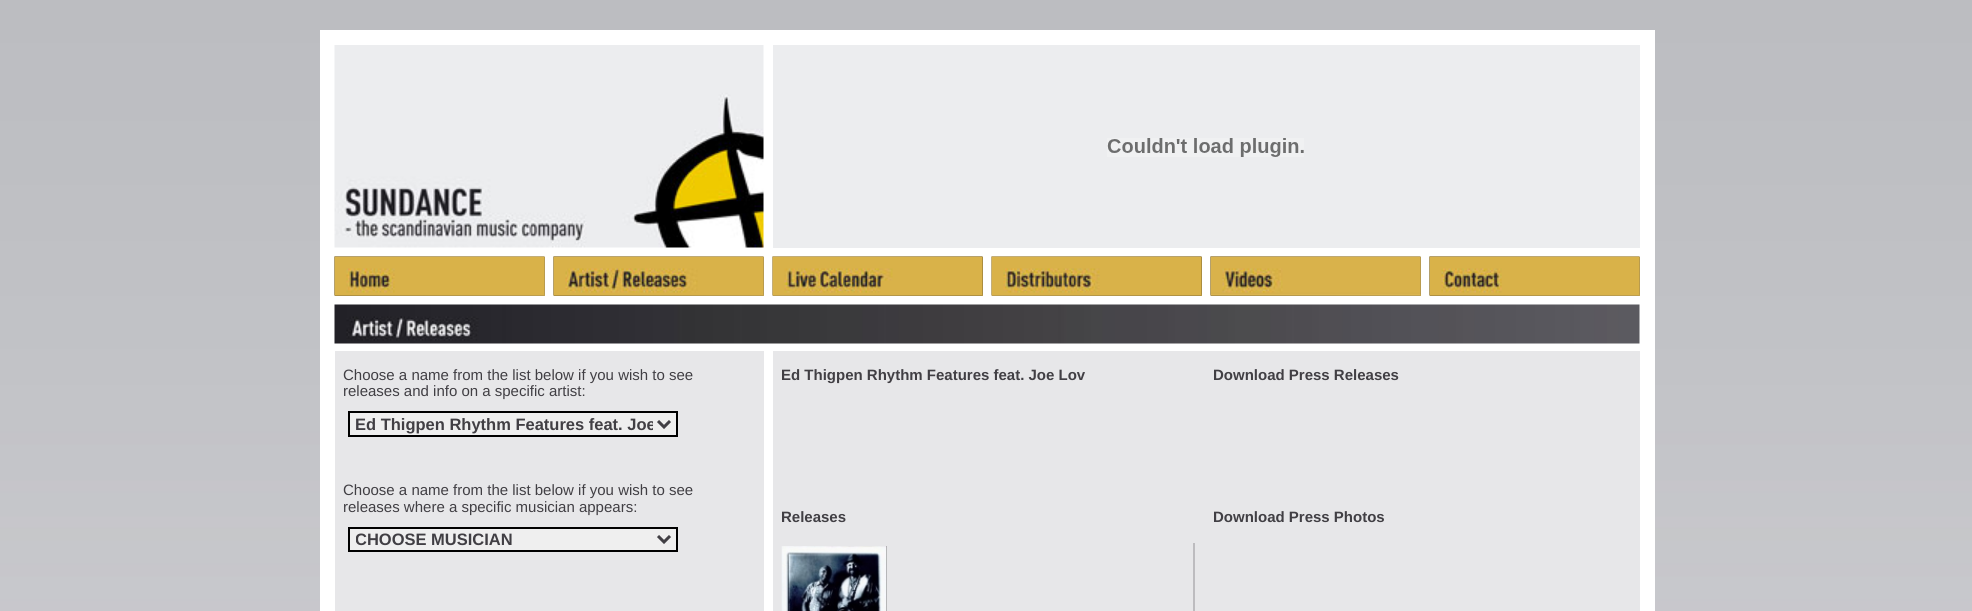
#include <cairo.h>
#include <math.h>
#include <stddef.h>

static cairo_t *c;
static void C(unsigned color){cairo_set_source_rgb(c, (color >> 16) / 255.0, (color >> 8 & 255) / 255.0, (color & 255) / 255.0);}
static void F(const char *family, double size, int italic, int bold){cairo_select_font_face(c, family, italic ? CAIRO_FONT_SLANT_ITALIC : CAIRO_FONT_SLANT_NORMAL,bold ? CAIRO_FONT_WEIGHT_BOLD : CAIRO_FONT_WEIGHT_NORMAL);cairo_set_font_size(c, size);}
static void T(double x, double y, const char *s){cairo_move_to(c, x, y);cairo_show_text(c, s);}
static void R(double x, double y, double w, double h){cairo_rectangle(c, x, y, w, h);cairo_fill(c);}
static void I(const char *path, double x, double y, double w, double h){cairo_surface_t *image = cairo_image_surface_create_from_png(path);cairo_save(c);cairo_set_source_surface(c, image, x, y);cairo_rectangle(c, x, y, w, h);cairo_fill(c);cairo_restore(c);cairo_surface_destroy(image);}
int main(void) {
cairo_surface_t *surface = cairo_image_surface_create(CAIRO_FORMAT_RGB24, 1972, 611);
c = cairo_create(surface);
cairo_font_options_t *options = cairo_font_options_create();
cairo_font_options_set_hint_metrics(options, CAIRO_HINT_METRICS_OFF);
cairo_font_options_set_hint_style(options, CAIRO_HINT_STYLE_NONE);
cairo_set_font_options(c, options);
cairo_set_miter_limit(c, 4);
C(0xffffff);
cairo_paint(c);
I("1.png",0,0,1972,611);
C(0xffffff);
R(320,30,1335,581);
I("2.png",334,45,430,203);
C(0xecedef);
R(773,45,867,203);
I("3.png",1107,138,197,19);
C(0xd9b249);
R(335,257,210,39);
I("4.png",334,256,211,40);
I("5.png",334,256,211,40);
R(554,257,210,39);
I("6.png",553,256,211,40);
I("7.png",553,256,211,40);
R(773,257,210,39);
I("8.png",772,256,211,40);
I("9.png",772,256,211,40);
R(992,257,210,39);
I("10.png",991,256,211,40);
I("11.png",991,256,211,40);
R(1211,257,210,39);
I("12.png",1210,256,211,40);
I("13.png",1210,256,211,40);
R(1430,257,210,39);
I("14.png",1429,256,211,40);
I("15.png",1429,256,211,40);
I("16.png",334,304,1306,40);
C(0xe7e7e9);
R(335,351,429,260);
F("Liberation Sans",15,0,0);
C(0x413f44);
T(343,380,"Choose a name from the list below if you wish to see");
T(343,396,"releases and info on a specific artist:");
C(0xefefef);
cairo_rectangle(c,349,412,328,24);
cairo_fill_preserve(c);
C(0x000000);
cairo_stroke(c);
cairo_new_path(c);
cairo_move_to(c,658,421);
cairo_line_to(c,664,427);
cairo_line_to(c,670,421);
C(0x413f44);
cairo_set_line_width(c,3);
cairo_stroke(c);
cairo_save(c);
cairo_rectangle(c,356,414,297,21);
cairo_clip(c);
F("Liberation Sans",16.5,0,1);
T(355,430,"Ed Thigpen Rhythm Features feat. Joe");
cairo_restore(c);
T(343,495,"Choose a name from the list below if you wish to see");
T(343,512,"releases where a specific musician appears:");
C(0xefefef);
cairo_rectangle(c,349,528,328,23);
cairo_fill_preserve(c);
C(0x000000);
cairo_set_line_width(c,2);
cairo_stroke(c);
cairo_new_path(c);
cairo_move_to(c,658,536);
cairo_line_to(c,664,542);
cairo_line_to(c,670,536);
C(0x413f44);
cairo_set_line_width(c,3);
cairo_stroke(c);
cairo_save(c);
cairo_rectangle(c,356,530,297,21);
cairo_clip(c);
F("Liberation Sans",16.5,0,1);
T(355,545,"CHOOSE MUSICIAN");
cairo_restore(c);
C(0xe7e7e9);
R(773,351,867,260);
cairo_save(c);
cairo_rectangle(c,782,366,849,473);
cairo_clip(c);
F("Liberation Sans",15,0,1);
C(0x413f44);
T(781,380,"Ed Thigpen Rhythm Features feat. Joe Lov");
cairo_restore(c);
F("Liberation Sans",15,0,1);
C(0x413f44);
T(1213,380,"Download Press Releases");
cairo_save(c);
cairo_rectangle(c,782,366,849,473);
cairo_clip(c);
T(781,522,"Releases");
cairo_restore(c);
C(0x777777);
R(886,546,1,65);
I("17.png",781,546,106,65);
C(0xbdbcbf);
R(1193,543,2,68);
C(0x413f44);
T(1213,522,"Download Press Photos");
cairo_surface_write_to_png(surface, "o.png");
cairo_font_options_destroy(options);
cairo_destroy(c);
cairo_surface_destroy(surface);
return 0;
}
